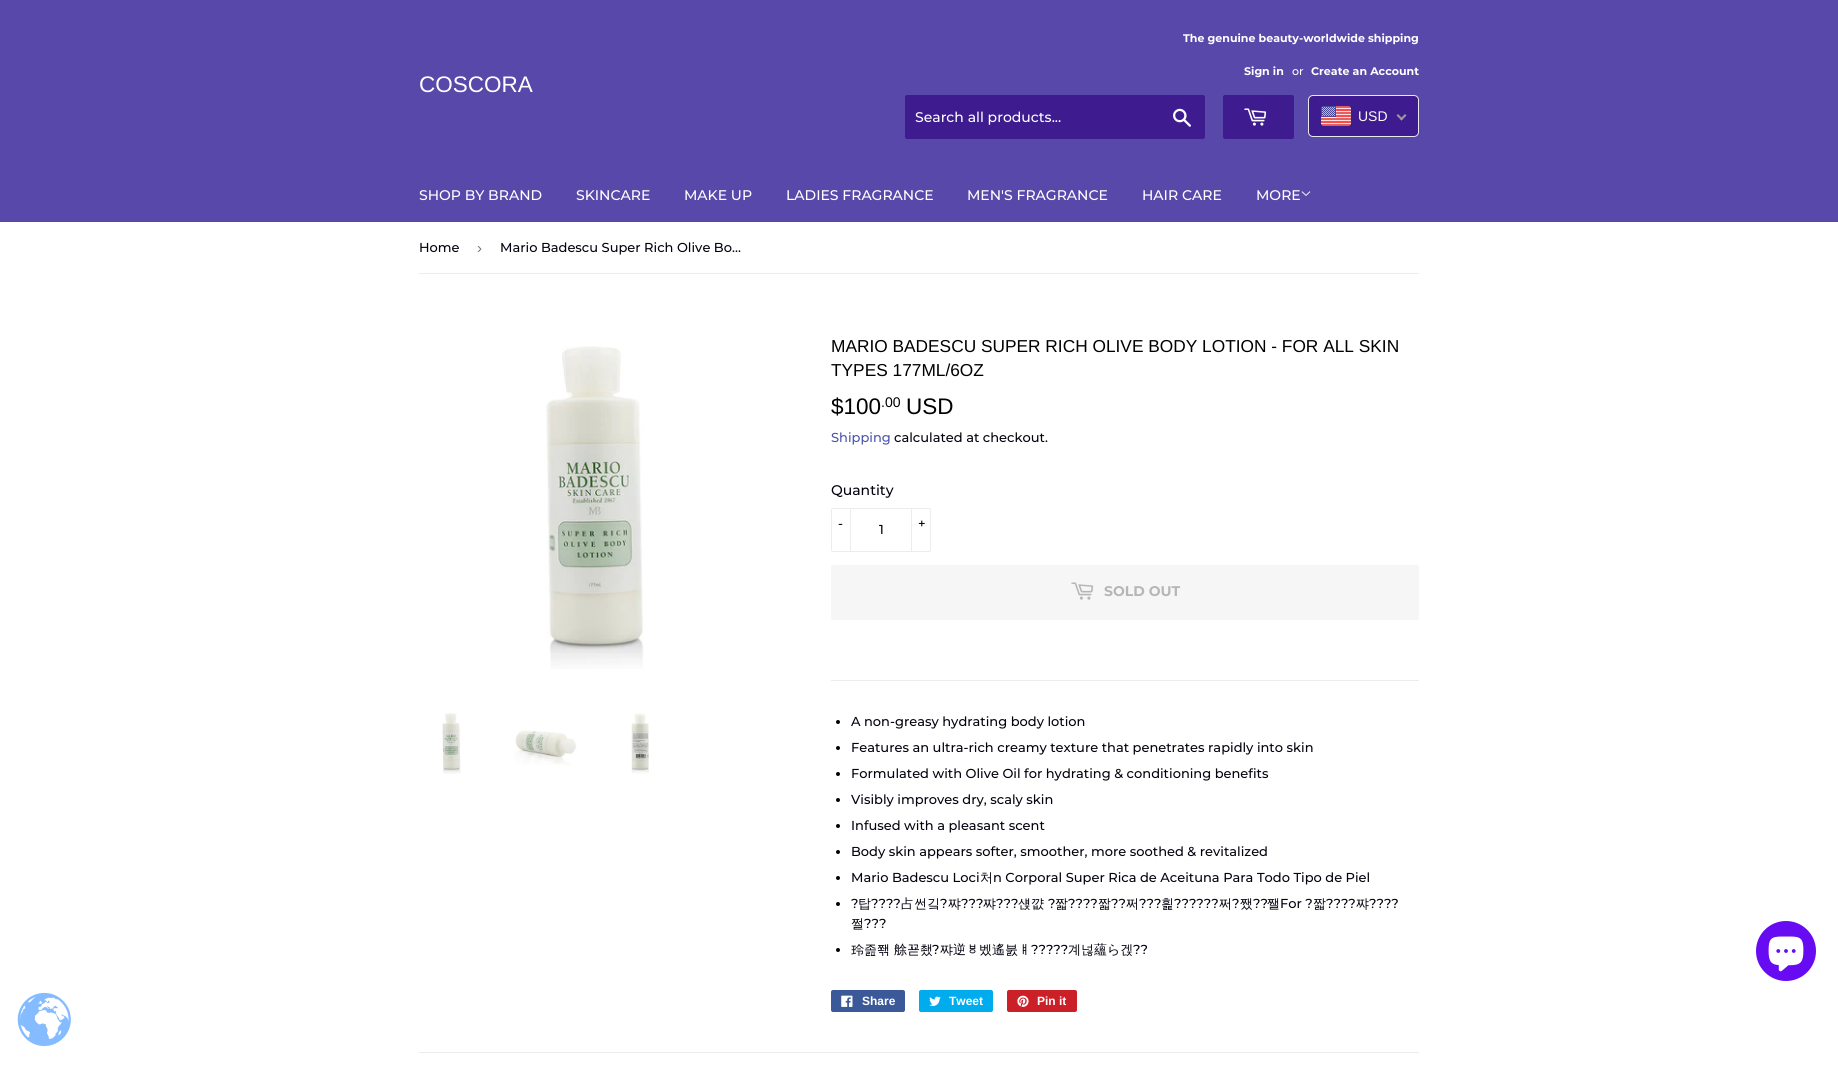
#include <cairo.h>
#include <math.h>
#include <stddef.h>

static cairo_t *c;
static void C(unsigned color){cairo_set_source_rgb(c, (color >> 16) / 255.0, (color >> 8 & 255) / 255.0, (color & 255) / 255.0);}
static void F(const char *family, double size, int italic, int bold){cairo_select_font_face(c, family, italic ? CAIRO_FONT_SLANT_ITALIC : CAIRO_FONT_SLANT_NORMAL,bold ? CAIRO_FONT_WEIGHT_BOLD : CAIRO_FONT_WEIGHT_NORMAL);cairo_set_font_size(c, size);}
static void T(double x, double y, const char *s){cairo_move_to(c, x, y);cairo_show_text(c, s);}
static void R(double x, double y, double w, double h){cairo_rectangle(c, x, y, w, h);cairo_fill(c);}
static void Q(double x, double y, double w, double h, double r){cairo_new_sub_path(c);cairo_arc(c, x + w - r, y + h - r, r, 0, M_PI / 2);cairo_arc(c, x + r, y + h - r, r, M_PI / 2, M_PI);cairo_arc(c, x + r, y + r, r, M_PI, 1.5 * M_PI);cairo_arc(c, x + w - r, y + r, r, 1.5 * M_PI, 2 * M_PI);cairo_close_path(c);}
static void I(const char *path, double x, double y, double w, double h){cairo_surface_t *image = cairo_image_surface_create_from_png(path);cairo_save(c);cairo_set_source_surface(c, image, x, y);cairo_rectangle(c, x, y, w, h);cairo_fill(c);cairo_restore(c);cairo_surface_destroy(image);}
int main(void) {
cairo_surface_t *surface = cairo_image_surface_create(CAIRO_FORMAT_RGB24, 1838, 1066);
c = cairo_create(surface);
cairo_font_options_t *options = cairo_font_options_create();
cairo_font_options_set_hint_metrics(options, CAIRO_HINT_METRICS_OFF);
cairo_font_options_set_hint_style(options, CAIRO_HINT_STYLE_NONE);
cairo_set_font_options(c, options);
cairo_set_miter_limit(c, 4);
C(0xffffff);
cairo_paint(c);
C(0x5848a9);
R(0,0,1838,222);
F("Arimo",22.5,0,0);
C(0xffffff);
T(419,92,"COSCORA");
F("Montserrat",11.05,0,1);
T(1183,42,"The genuine beauty-worldwide shipping");
T(1244,75,"Sign in");
F("Montserrat Medium",11.05,0,0);
T(1292,75,"or");
F("Montserrat",11.05,0,1);
T(1311,75,"Create an Account");
C(0x3e1b8f);
Q(905,95,300,44,2);
cairo_fill(c);
F("Montserrat Medium",14,0,0);
C(0xffffff);
T(915,122,"Search all products...");
I("1.png",1173,108,18,19);
C(0x3e1b8f);
Q(1223,95,71,44,2);
cairo_fill(c);
I("2.png",1244,108,23,18);
Q(1308.5,95.5,110,41,4.5);
cairo_fill_preserve(c);
C(0xe8e8e8);
cairo_set_line_width(c,1);
cairo_stroke(c);
I("3.png",1321,106,30,20);
F("Liberation Sans",14,0,0);
C(0xfcf9f9);
T(1358,121,"USD");
C(0x999999);
cairo_new_path(c);
cairo_move_to(c,1405,114);
cairo_line_to(c,1406.5,115.5);
cairo_line_to(c,1401.5,120.5);
cairo_line_to(c,1400,119);
cairo_close_path(c);
cairo_fill(c);
cairo_new_path(c);
cairo_move_to(c,1398,114);
cairo_line_to(c,1403,119);
cairo_line_to(c,1401.5,120.5);
cairo_line_to(c,1396.5,115.5);
cairo_close_path(c);
cairo_fill(c);
F("Montserrat Medium",14,0,0);
C(0xffffff);
T(419,200,"SHOP BY BRAND");
T(576,200,"SKINCARE");
T(684,200,"MAKE UP");
T(786,200,"LADIES FRAGRANCE");
T(967,200,"MEN'S FRAGRANCE");
T(1142,200,"HAIR CARE");
T(1256,200,"MORE");
I("4.png",1301,191,10,5);
C(0xececec);
R(419,273,1000,1);
F("Montserrat Medium",13,0,0);
C(0x01020d);
T(419,252,"Home");
F("Liberation Sans",15,0,0);
C(0x767676);
T(477,253,"›");
F("Montserrat Medium",13,0,0);
C(0x01020d);
T(500,252,"Mario Badescu Super Rich Olive Bo…");
I("5.png",546,346,98,323);
I("6.png",442,713,19,61);
I("7.png",514,730,63,35);
I("8.png",631,713,18,61);
F("Arimo",17.3,0,0);
C(0x000000);
T(831,352,"MARIO BADESCU SUPER RICH OLIVE BODY LOTION - FOR ALL SKIN");
T(831,376,"TYPES 177ML/6OZ");
F("Arimo",22.5,0,0);
T(831,414,"$100");
F("Arimo",14,0,0);
T(881,407,".00");
F("Arimo",22.5,0,0);
T(906,414,"USD");
F("Montserrat Medium",13,0,0);
C(0x4a54ac);
T(831,442,"Shipping");
C(0x01020d);
T(894,442,"calculated at checkout.");
F("Montserrat Medium",14,0,0);
T(831,495,"Quantity");
Q(831.5,508.5,99,43,1.5);
C(0xececec);
cairo_stroke(c);
R(850,508,1,44);
F("Montserrat Medium",13,0,0);
C(0x01020d);
T(838,528,"-");
T(879,534,"1");
C(0xececec);
R(911,508,1,44);
C(0x01020d);
T(918,528,"+");
C(0xf6f6f6);
Q(831,565,588,55,2);
cairo_fill(c);
I("9.png",1071,582,23,18);
F("Montserrat",14,0,1);
C(0xb6b6b6);
T(1104,596,"SOLD OUT");
C(0xececec);
R(831,680,588,1);
C(0x01020d);
cairo_new_path(c);
cairo_arc(c,838,722,2,0,2 * M_PI);
cairo_fill(c);
F("Montserrat Medium",13,0,0);
T(851,726,"A non-greasy hydrating body lotion");
cairo_new_path(c);
cairo_arc(c,838,748,2,0,2 * M_PI);
cairo_fill(c);
T(851,752,"Features an ultra-rich creamy texture that penetrates rapidly into skin");
cairo_new_path(c);
cairo_arc(c,838,774,2,0,2 * M_PI);
cairo_fill(c);
T(851,778,"Formulated with Olive Oil for hydrating & conditioning benefits");
cairo_new_path(c);
cairo_arc(c,838,800,2,0,2 * M_PI);
cairo_fill(c);
T(851,804,"Visibly improves dry, scaly skin");
cairo_new_path(c);
cairo_arc(c,838,826,2,0,2 * M_PI);
cairo_fill(c);
T(851,830,"Infused with a pleasant scent");
cairo_new_path(c);
cairo_arc(c,838,852,2,0,2 * M_PI);
cairo_fill(c);
T(851,856,"Body skin appears softer, smoother, more soothed & revitalized");
cairo_new_path(c);
cairo_arc(c,838,878,2,0,2 * M_PI);
cairo_fill(c);
T(851,882,"Mario Badescu Loci");
F("WenQuanYi Zen Hei Medium",13,0,0);
T(980,882,"처");
F("Montserrat Medium",13,0,0);
T(993,882,"n Corporal Super Rica de Aceituna Para Todo Tipo de Piel");
cairo_new_path(c);
cairo_arc(c,838,904,2,0,2 * M_PI);
cairo_fill(c);
T(851,908,"?");
F("WenQuanYi Zen Hei Medium",13,0,0);
T(858,908,"탑");
F("Montserrat Medium",13,0,0);
T(871,908,"?\077?\077");
F("WenQuanYi Zen Hei Medium",13,0,0);
T(901,908,"占썬깈");
F("Montserrat Medium",13,0,0);
T(940,908,"?");
F("WenQuanYi Zen Hei Medium",13,0,0);
T(948,908,"쨔");
F("Montserrat Medium",13,0,0);
T(961,908,"?\077?");
F("WenQuanYi Zen Hei Medium",13,0,0);
T(983,908,"쨔");
F("Montserrat Medium",13,0,0);
T(996,908,"?\077?");
F("WenQuanYi Zen Hei Medium",13,0,0);
T(1018,908,"섅꺖");
F("Montserrat Medium",13,0,0);
T(1048,908,"?");
F("WenQuanYi Zen Hei Medium",13,0,0);
T(1055,908,"짧");
F("Montserrat Medium",13,0,0);
T(1068,908,"?\077?\077");
F("WenQuanYi Zen Hei Medium",13,0,0);
T(1098,908,"짧");
F("Montserrat Medium",13,0,0);
T(1111,908,"?\077");
F("WenQuanYi Zen Hei Medium",13,0,0);
T(1126,908,"쩌");
F("Montserrat Medium",13,0,0);
T(1139,908,"?\077?");
F("WenQuanYi Zen Hei Medium",13,0,0);
T(1161,908,"흹");
F("Montserrat Medium",13,0,0);
T(1174,908,"?\077?\077?\077");
F("WenQuanYi Zen Hei Medium",13,0,0);
T(1219,908,"쩌");
F("Montserrat Medium",13,0,0);
T(1232,908,"?");
F("WenQuanYi Zen Hei Medium",13,0,0);
T(1240,908,"쨌");
F("Montserrat Medium",13,0,0);
T(1253,908,"?\077");
F("WenQuanYi Zen Hei Medium",13,0,0);
T(1267,908,"쨀");
F("Montserrat Medium",13,0,0);
T(1280,908,"For ?");
F("WenQuanYi Zen Hei Medium",13,0,0);
T(1313,908,"짧");
F("Montserrat Medium",13,0,0);
T(1326,908,"?\077?\077");
F("WenQuanYi Zen Hei Medium",13,0,0);
T(1356,908,"쨔");
F("Montserrat Medium",13,0,0);
T(1369,908,"?\077?\077");
F("WenQuanYi Zen Hei Medium",13,0,0);
T(851,928,"쩔");
F("Montserrat Medium",13,0,0);
T(864,928,"?\077?");
cairo_new_path(c);
cairo_arc(c,838,950,2,0,2 * M_PI);
cairo_fill(c);
F("WenQuanYi Zen Hei Medium",13,0,0);
T(851,954,"玲졾쫶 艅꾣쵔");
F("Montserrat Medium",13,0,0);
T(932,954,"?");
F("WenQuanYi Zen Hei Medium",13,0,0);
T(940,954,"쨔逆ㅸ벴遙붌ㅒ");
F("Montserrat Medium",13,0,0);
T(1031,954,"?\077?\077?");
F("WenQuanYi Zen Hei Medium",13,0,0);
T(1068,954,"계넎蘊ら겑");
F("Montserrat Medium",13,0,0);
T(1133,954,"?\077");
C(0x3b5998);
Q(831,990,74,22,2);
cairo_fill(c);
I("10.png",841,995,12,12);
F("Liberation Sans",12,0,1);
C(0xffffff);
T(862,1005,"Share");
C(0x00aced);
Q(919,990,74,22,2);
cairo_fill(c);
I("11.png",929,996,12,10);
C(0xffffff);
T(949,1005,"Tweet");
C(0xcb2027);
Q(1007,990,70,22,2);
cairo_fill(c);
I("12.png",1017,995,12,12);
C(0xffffff);
T(1037,1005,"Pin it");
C(0xececec);
R(419,1052,1000,1);
C(0x670bf2);
cairo_new_path(c);
cairo_arc(c,1786,951,30,0,2 * M_PI);
cairo_fill(c);
I("13.png",1768,936,36,36);
I("14.png",17,992,54,55);
cairo_surface_write_to_png(surface, "o.png");
cairo_font_options_destroy(options);
cairo_destroy(c);
cairo_surface_destroy(surface);
return 0;
}
